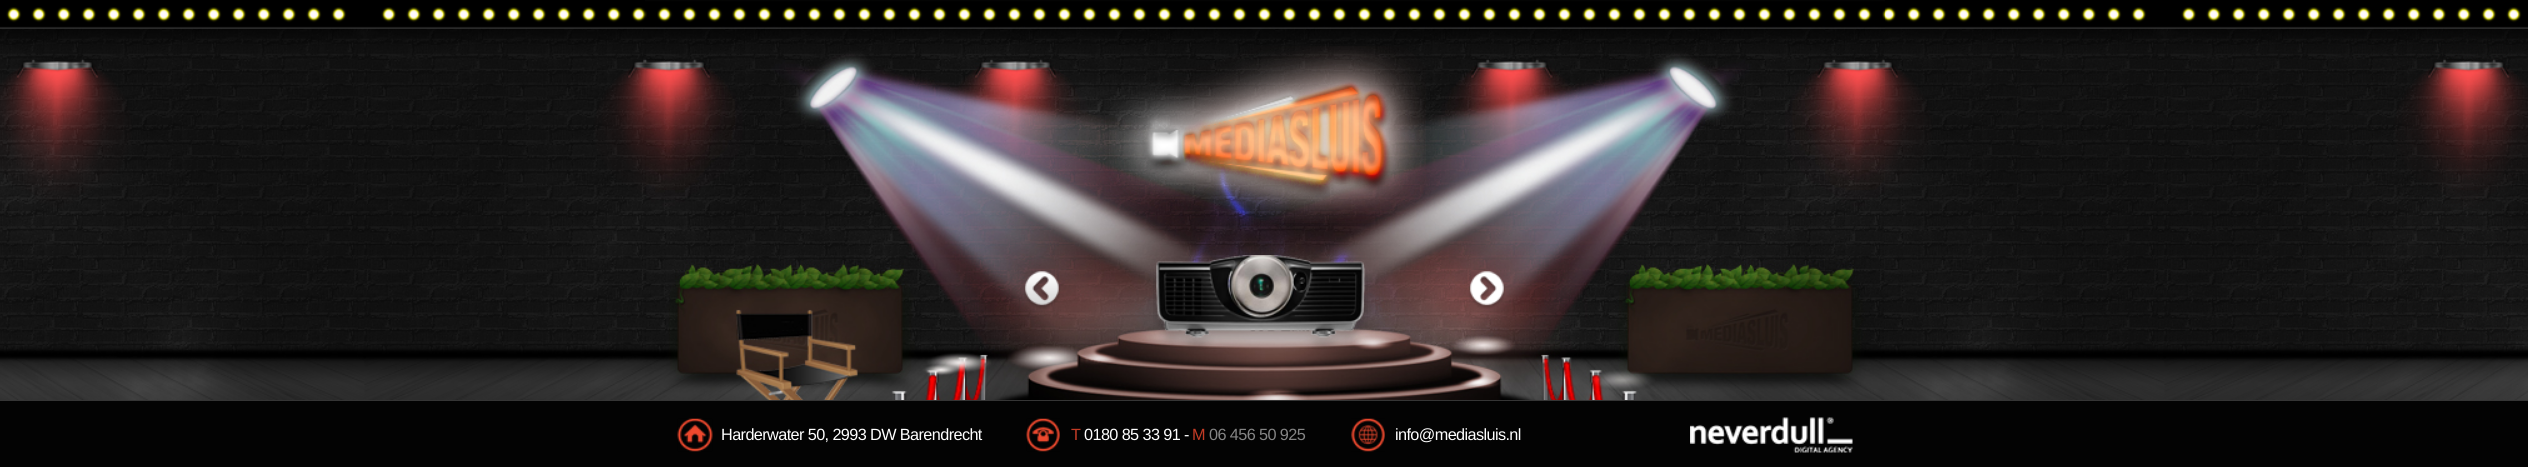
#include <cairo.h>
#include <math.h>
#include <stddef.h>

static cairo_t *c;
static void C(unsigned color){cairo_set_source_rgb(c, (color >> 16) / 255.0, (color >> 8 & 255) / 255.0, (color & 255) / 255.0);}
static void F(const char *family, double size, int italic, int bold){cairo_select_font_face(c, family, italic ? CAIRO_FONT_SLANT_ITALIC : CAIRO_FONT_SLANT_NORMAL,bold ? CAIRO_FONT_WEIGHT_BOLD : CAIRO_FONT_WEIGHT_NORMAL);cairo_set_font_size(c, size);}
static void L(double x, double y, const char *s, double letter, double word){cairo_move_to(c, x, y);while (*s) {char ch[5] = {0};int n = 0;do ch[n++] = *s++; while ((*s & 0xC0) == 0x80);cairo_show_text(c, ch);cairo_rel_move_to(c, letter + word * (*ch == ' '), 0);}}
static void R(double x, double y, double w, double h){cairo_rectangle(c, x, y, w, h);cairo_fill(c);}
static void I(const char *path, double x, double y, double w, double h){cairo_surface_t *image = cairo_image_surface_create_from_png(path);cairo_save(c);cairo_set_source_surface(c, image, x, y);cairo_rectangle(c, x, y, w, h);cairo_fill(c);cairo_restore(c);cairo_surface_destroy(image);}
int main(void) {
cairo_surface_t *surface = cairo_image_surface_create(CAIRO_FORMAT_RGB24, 2528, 467);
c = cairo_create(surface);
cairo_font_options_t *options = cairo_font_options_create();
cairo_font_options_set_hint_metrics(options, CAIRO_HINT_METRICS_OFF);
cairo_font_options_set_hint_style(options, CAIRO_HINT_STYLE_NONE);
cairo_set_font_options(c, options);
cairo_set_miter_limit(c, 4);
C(0x000000);
cairo_paint(c);
I("1.png",0,7,2528,393);
I("2.png",645,0,1240,400);
I("3.png",1153,255,215,95);
I("4.png",1024,271,36,38);
I("5.png",1469,271,36,38);
I("6.png",1109,46,317,177);
C(0x030303);
R(0,401,2528,66);
C(0x353535);
R(0,400,2528,1);
I("7.png",677,418,36,34);
F("Liberation Sans",16.25,0,0);
C(0xffffff);
L(721,440,"Harderwater 50, 2993 DW Barendrecht",-.6,0);
I("8.png",1026,418,34,34);
C(0xc33b25);
L(1071,440,"T",-.6,0);
C(0xffffff);
L(1084,440,"0180 85 33 91 -",-.6,0);
C(0xc33b25);
L(1192,440,"M",-.6,0);
C(0x858585);
L(1209,440,"06 456 50 925",-.6,0);
I("9.png",1351,418,34,34);
C(0xffffff);
L(1395,440,"info@mediasluis.nl",-.6,0);
I("10.png",1690,417,163,36);
cairo_surface_write_to_png(surface, "o.png");
cairo_font_options_destroy(options);
cairo_destroy(c);
cairo_surface_destroy(surface);
return 0;
}
